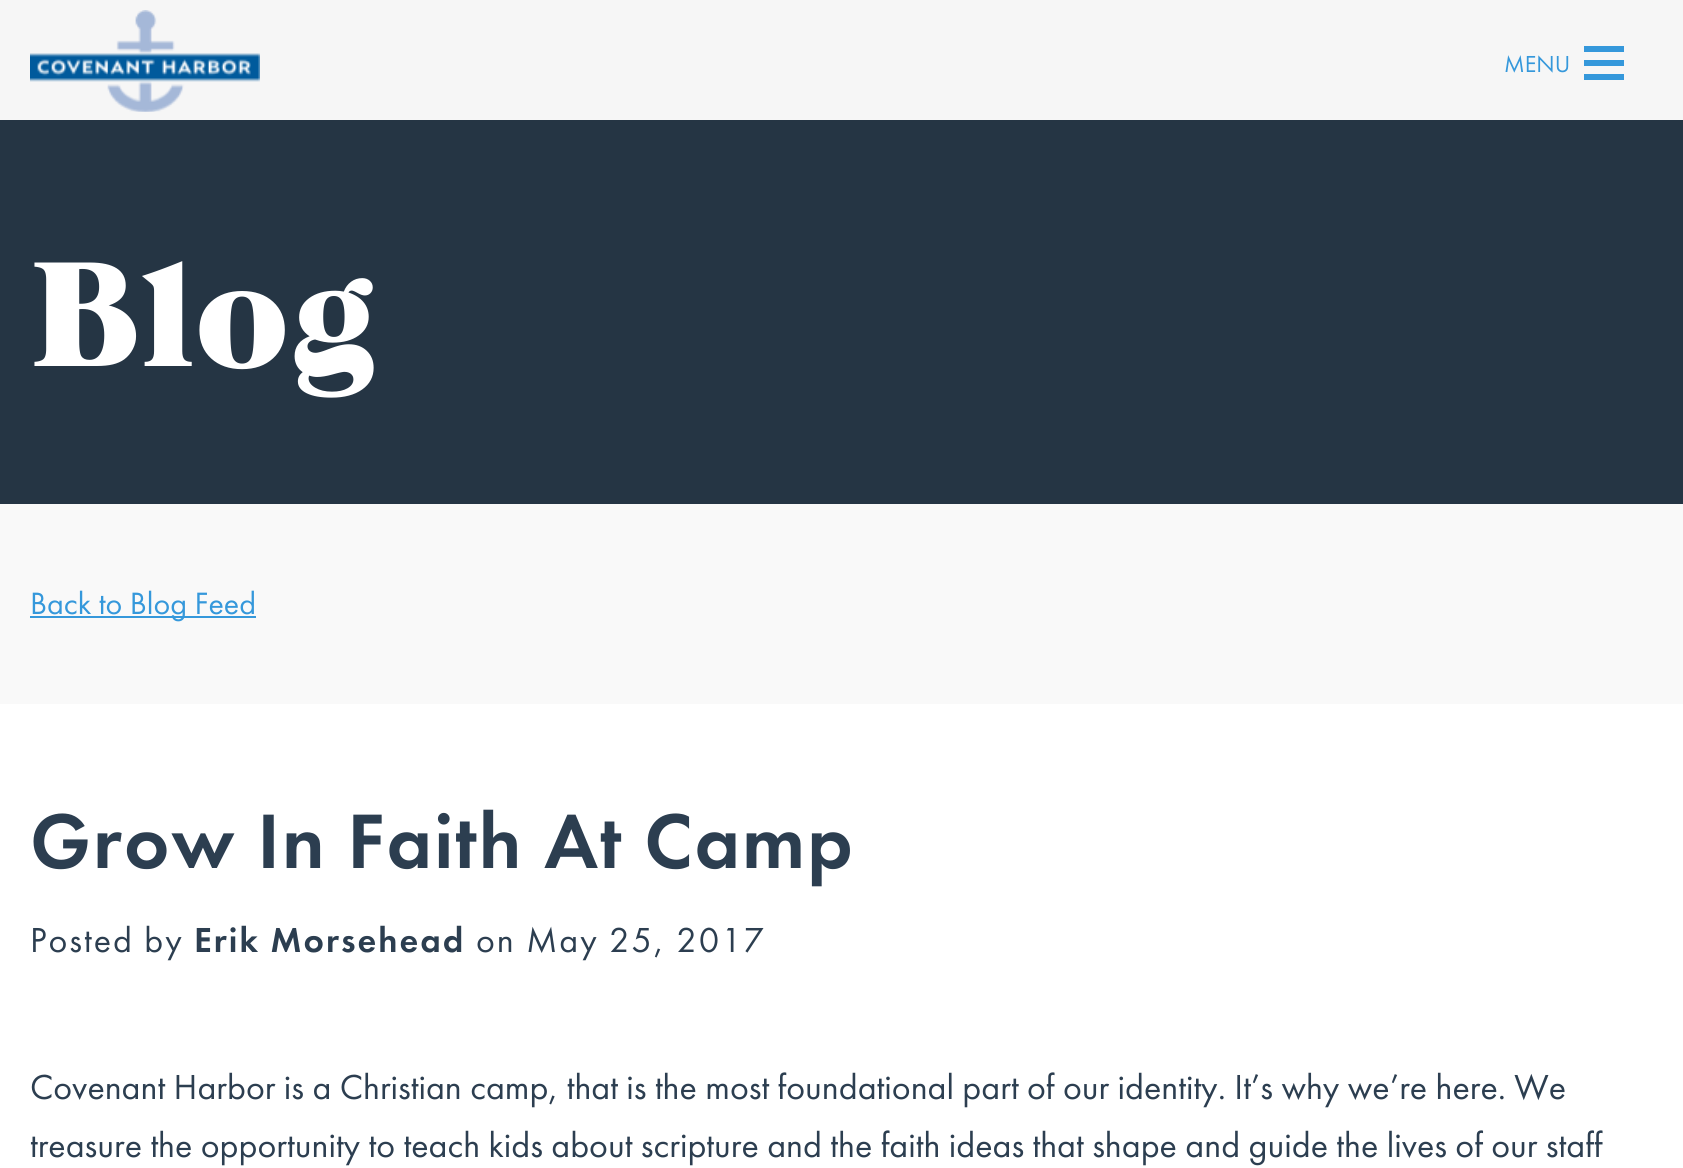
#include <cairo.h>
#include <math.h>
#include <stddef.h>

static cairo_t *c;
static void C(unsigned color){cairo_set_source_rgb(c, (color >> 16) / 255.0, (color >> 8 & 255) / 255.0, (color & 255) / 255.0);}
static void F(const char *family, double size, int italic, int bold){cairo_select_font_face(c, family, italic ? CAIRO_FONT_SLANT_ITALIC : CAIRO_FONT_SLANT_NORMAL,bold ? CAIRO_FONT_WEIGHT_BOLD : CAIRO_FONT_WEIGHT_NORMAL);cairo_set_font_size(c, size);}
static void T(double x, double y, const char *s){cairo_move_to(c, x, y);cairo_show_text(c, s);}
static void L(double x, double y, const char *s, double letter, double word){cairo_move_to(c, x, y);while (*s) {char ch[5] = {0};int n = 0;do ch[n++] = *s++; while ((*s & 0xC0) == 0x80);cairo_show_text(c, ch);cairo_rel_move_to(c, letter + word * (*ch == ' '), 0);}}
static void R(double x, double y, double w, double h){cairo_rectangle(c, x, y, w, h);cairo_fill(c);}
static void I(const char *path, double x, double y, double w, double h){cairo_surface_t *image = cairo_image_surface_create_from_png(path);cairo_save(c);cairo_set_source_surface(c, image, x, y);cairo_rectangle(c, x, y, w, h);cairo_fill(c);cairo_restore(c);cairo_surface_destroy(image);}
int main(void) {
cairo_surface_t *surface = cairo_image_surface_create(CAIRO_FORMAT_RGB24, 1683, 1168);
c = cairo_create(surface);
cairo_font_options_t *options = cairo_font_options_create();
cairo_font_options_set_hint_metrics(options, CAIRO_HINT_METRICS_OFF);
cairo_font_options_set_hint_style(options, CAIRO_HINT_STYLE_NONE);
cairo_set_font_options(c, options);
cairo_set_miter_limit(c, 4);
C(0xffffff);
cairo_paint(c);
C(0xf6f6f6);
R(0,0,1683,120);
I("1.png",30,10,230,102);
F("Futura PT",24,0,0);
C(0x3598db);
T(1504,72,"MENU");
R(1584,60,40,6);
R(1584,46,40,6);
R(1584,74,40,6);
C(0x253544);
R(0,120,1683,384);
F("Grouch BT",150,0,0);
C(0xffffff);
L(30,366,"Blog",2,0);
C(0xf9f9f9);
R(0,504,1683,200);
C(0x3598db);
R(30,616,226,2);
F("Futura PT",32,0,0);
T(30,614,"Back to Blog Feed");
F("Futura PT Medium",80,0,0);
C(0x2c3e50);
L(30,868,"Grow In Faith At Camp",2,0);
F("Futura PT",36,0,0);
L(30,952,"Posted by",2,0);
F("Futura PT Medium",36,0,0);
L(194,952,"Erik Morsehead",2,0);
F("Futura PT",36,0,0);
L(476,952,"on May 25, 2017",2,0);
T(30,1099,"Covenant Harbor is a Christian camp, that is the most foundational part of our identity. It’s why we’re here. We");
T(30,1157,"treasure the opportunity to teach kids about scripture and the faith ideas that shape and guide the lives of our staff");
cairo_surface_write_to_png(surface, "o.png");
cairo_font_options_destroy(options);
cairo_destroy(c);
cairo_surface_destroy(surface);
return 0;
}
